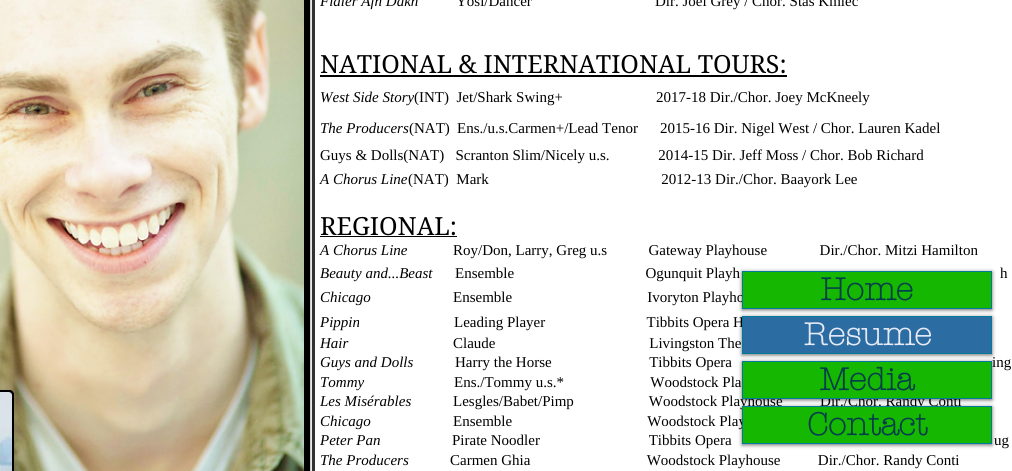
#include <cairo.h>
#include <math.h>
#include <stddef.h>

static cairo_t *c;
static void C(unsigned color){cairo_set_source_rgb(c, (color >> 16) / 255.0, (color >> 8 & 255) / 255.0, (color & 255) / 255.0);}
static void F(const char *family, double size, int italic, int bold){cairo_select_font_face(c, family, italic ? CAIRO_FONT_SLANT_ITALIC : CAIRO_FONT_SLANT_NORMAL,bold ? CAIRO_FONT_WEIGHT_BOLD : CAIRO_FONT_WEIGHT_NORMAL);cairo_set_font_size(c, size);}
static void T(double x, double y, const char *s){cairo_move_to(c, x, y);cairo_show_text(c, s);}
static void R(double x, double y, double w, double h){cairo_rectangle(c, x, y, w, h);cairo_fill(c);}
static void Q(double x, double y, double w, double h, double r){cairo_new_sub_path(c);cairo_arc(c, x + w - r, y + h - r, r, 0, M_PI / 2);cairo_arc(c, x + r, y + h - r, r, M_PI / 2, M_PI);cairo_arc(c, x + r, y + r, r, M_PI, 1.5 * M_PI);cairo_arc(c, x + w - r, y + r, r, 1.5 * M_PI, 2 * M_PI);cairo_close_path(c);}
static void S(double x, double y, double w, double h, double r, double blur, double alpha){cairo_push_group_with_content(c, CAIRO_CONTENT_ALPHA);cairo_set_operator(c, CAIRO_OPERATOR_SOURCE);for (int i = 15; i >= -15 && fmin(w, h) + blur * i / 3 > 0; i -= 2) {double e = blur * i / 6;cairo_set_source_rgba(c, 0, 0, 0, alpha * erfc((i - 1) / 8.5) / 2);Q(x - e, y - e, w + 2 * e, h + 2 * e, fmax(0, fmin(r + e + blur * .6, fmin(w, h) / 2 + e)));cairo_fill(c);}cairo_pattern_t *soft = cairo_pop_group(c);cairo_mask(c, soft);cairo_pattern_destroy(soft);}
static void I(const char *path, double x, double y, double w, double h){cairo_surface_t *image = cairo_image_surface_create_from_png(path);cairo_save(c);cairo_set_source_surface(c, image, x, y);cairo_rectangle(c, x, y, w, h);cairo_fill(c);cairo_restore(c);cairo_surface_destroy(image);}
int main(void) {
cairo_surface_t *surface = cairo_image_surface_create(CAIRO_FORMAT_RGB24, 1012, 471);
c = cairo_create(surface);
cairo_font_options_t *options = cairo_font_options_create();
cairo_font_options_set_hint_metrics(options, CAIRO_HINT_METRICS_OFF);
cairo_font_options_set_hint_style(options, CAIRO_HINT_STYLE_NONE);
cairo_set_font_options(c, options);
cairo_set_miter_limit(c, 4);
C(0xffffff);
cairo_paint(c);
C(0x000000);
S(-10,-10,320,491,5,1.5,.5);
C(0x000000);
R(304,0,6,471);
I("1.png",0,0,304,471);
C(0x000000);
S(-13,390,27,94,5,2.5,.1);
C(0x000000);
cairo_new_path(c);
cairo_move_to(c,0,390);
cairo_line_to(c,9,390);
cairo_curve_to(c,12,390,14,392,14,395);
cairo_line_to(c,14,471);
cairo_curve_to(c,14,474,12,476,9,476);
cairo_line_to(c,0,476);
cairo_close_path(c);
cairo_fill(c);
Q(-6,391,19,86,4);
cairo_stroke(c);
I("2.png",0,392,12,79);
cairo_set_source_rgba(c,0,0,0,0.03);
R(32,421,6,1);
C(0x333333);
R(312,0,3,471);
F("Liberation Serif",15,1,0);
C(0x000000);
T(320,6,"Fidler Afn Dakh");
F("Liberation Serif",15,0,0);
T(456,6,"Yosl/Dancer");
T(655,6,"Dir. Joel Grey / Chor. Staś Kmieć");
F("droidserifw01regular",25,0,0);
T(320,73,"NATIONAL & INTERNATIONAL TOURS:");
R(320,75,467,2);
F("Liberation Serif",15,1,0);
T(320,102,"West Side Story");
F("Liberation Serif",15,0,0);
T(414,102,"(INT)  Jet/Shark Swing+");
T(656,102,"2017-18 Dir./Chor. Joey McKneely");
F("Liberation Serif",15,1,0);
T(320,133,"The Producers");
F("Liberation Serif",15,0,0);
T(409,133,"(NAT)");
T(457,133,"Ens./u.s.Carmen+/Lead Tenor");
T(660,133,"2015-16 Dir. Nigel West / Chor. Lauren Kadel");
T(320,160,"Guys & Dolls(NAT)   Scranton Slim/Nicely u.s.             2014-15 Dir. Jeff Moss / Chor. Bob Richard");
F("Liberation Serif",15,1,0);
T(320,184,"A Chorus Line");
F("Liberation Serif",15,0,0);
T(408,184,"(NAT)  Mark                                              2012-13 Dir./Chor. Baayork Lee");
F("droidserifw01regular",25,0,0);
T(320,235,"REGIONAL:");
R(320,236,137,1);
F("Liberation Serif",15,1,0);
T(320,255,"A Chorus Line");
F("Liberation Serif",15,0,0);
T(453,255,"Roy/Don, Larry, Greg u.s           Gateway Playhouse              Dir./Chor. Mitzi Hamilton");
F("Liberation Serif",15,1,0);
T(320,278,"Beauty and...Beast");
F("Liberation Serif",15,0,0);
T(455,278,"Ensemble                                   Ogunquit Playh");
T(1000,278,"h");
F("Liberation Serif",15,1,0);
T(320,302,"Chicago");
F("Liberation Serif",15,0,0);
T(453,302,"Ensemble                                    Ivoryton Playho");
F("Liberation Serif",15,1,0);
T(320,327,"Pippin");
F("Liberation Serif",15,0,0);
T(454,327,"Leading Player                           Tibbits Opera H");
F("Liberation Serif",15,1,0);
T(320,348,"Hair");
F("Liberation Serif",15,0,0);
T(453,348,"Claude                                         Livingston The");
F("Liberation Serif",15,1,0);
T(320,367,"Guys and Dolls");
F("Liberation Serif",15,0,0);
T(455,367,"Harry the Horse                          Tibbits Opera");
T(992,367,"ing");
F("Liberation Serif",15,1,0);
T(320,387,"Tommy");
F("Liberation Serif",15,0,0);
T(454,387,"Ens./Tommy u.s.*                       Woodstock Pla");
F("Liberation Serif",15,1,0);
T(320,406,"Les Misérables");
F("Liberation Serif",15,0,0);
T(453,406,"Lesgles/Babet/Pimp                    Woodstock Playhouse          Dir./Chor. Randy Conti");
F("Liberation Serif",15,1,0);
T(320,426,"Chicago");
F("Liberation Serif",15,0,0);
T(453,426,"Ensemble                                    Woodstock Play");
F("Liberation Serif",15,1,0);
T(320,445,"Peter Pan");
F("Liberation Serif",15,0,0);
T(452,445,"Pirate Noodler                             Tibbits Opera");
T(994,445,"ug");
F("Liberation Serif",15,1,0);
T(320,465,"The Producers");
F("Liberation Serif",15,0,0);
T(450,465,"Carmen Ghia                               Woodstock Playhouse          Dir./Chor. Randy Conti");
C(0x000000);
S(742,272,250,38,0,2,.6);
C(0x15b700);
cairo_rectangle(c,742.5,271.5,249,37);
cairo_fill_preserve(c);
C(0x007a99);
cairo_set_line_width(c,1);
cairo_stroke(c);
F("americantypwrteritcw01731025",32,0,1);
C(0x003d4c);
T(820,300,"Home");
C(0x000000);
S(742,317,250,38,0,2,.6);
C(0x2b6ca3);
cairo_rectangle(c,742.5,316.5,249,37);
cairo_fill_preserve(c);
C(0x007a99);
cairo_stroke(c);
C(0xe6eaf5);
T(803,345,"Resume");
C(0x000000);
S(742,362,250,38,0,2,.6);
C(0x15b700);
cairo_rectangle(c,742.5,361.5,249,37);
cairo_fill_preserve(c);
C(0x007a99);
cairo_stroke(c);
C(0x003d4c);
T(819,390,"Media");
C(0x000000);
S(742,407,250,38,0,2,.6);
C(0x15b700);
cairo_rectangle(c,742.5,406.5,249,37);
cairo_fill_preserve(c);
C(0x007a99);
cairo_stroke(c);
C(0x003d4c);
T(807,435,"Contact");
cairo_surface_write_to_png(surface, "o.png");
cairo_font_options_destroy(options);
cairo_destroy(c);
cairo_surface_destroy(surface);
return 0;
}
